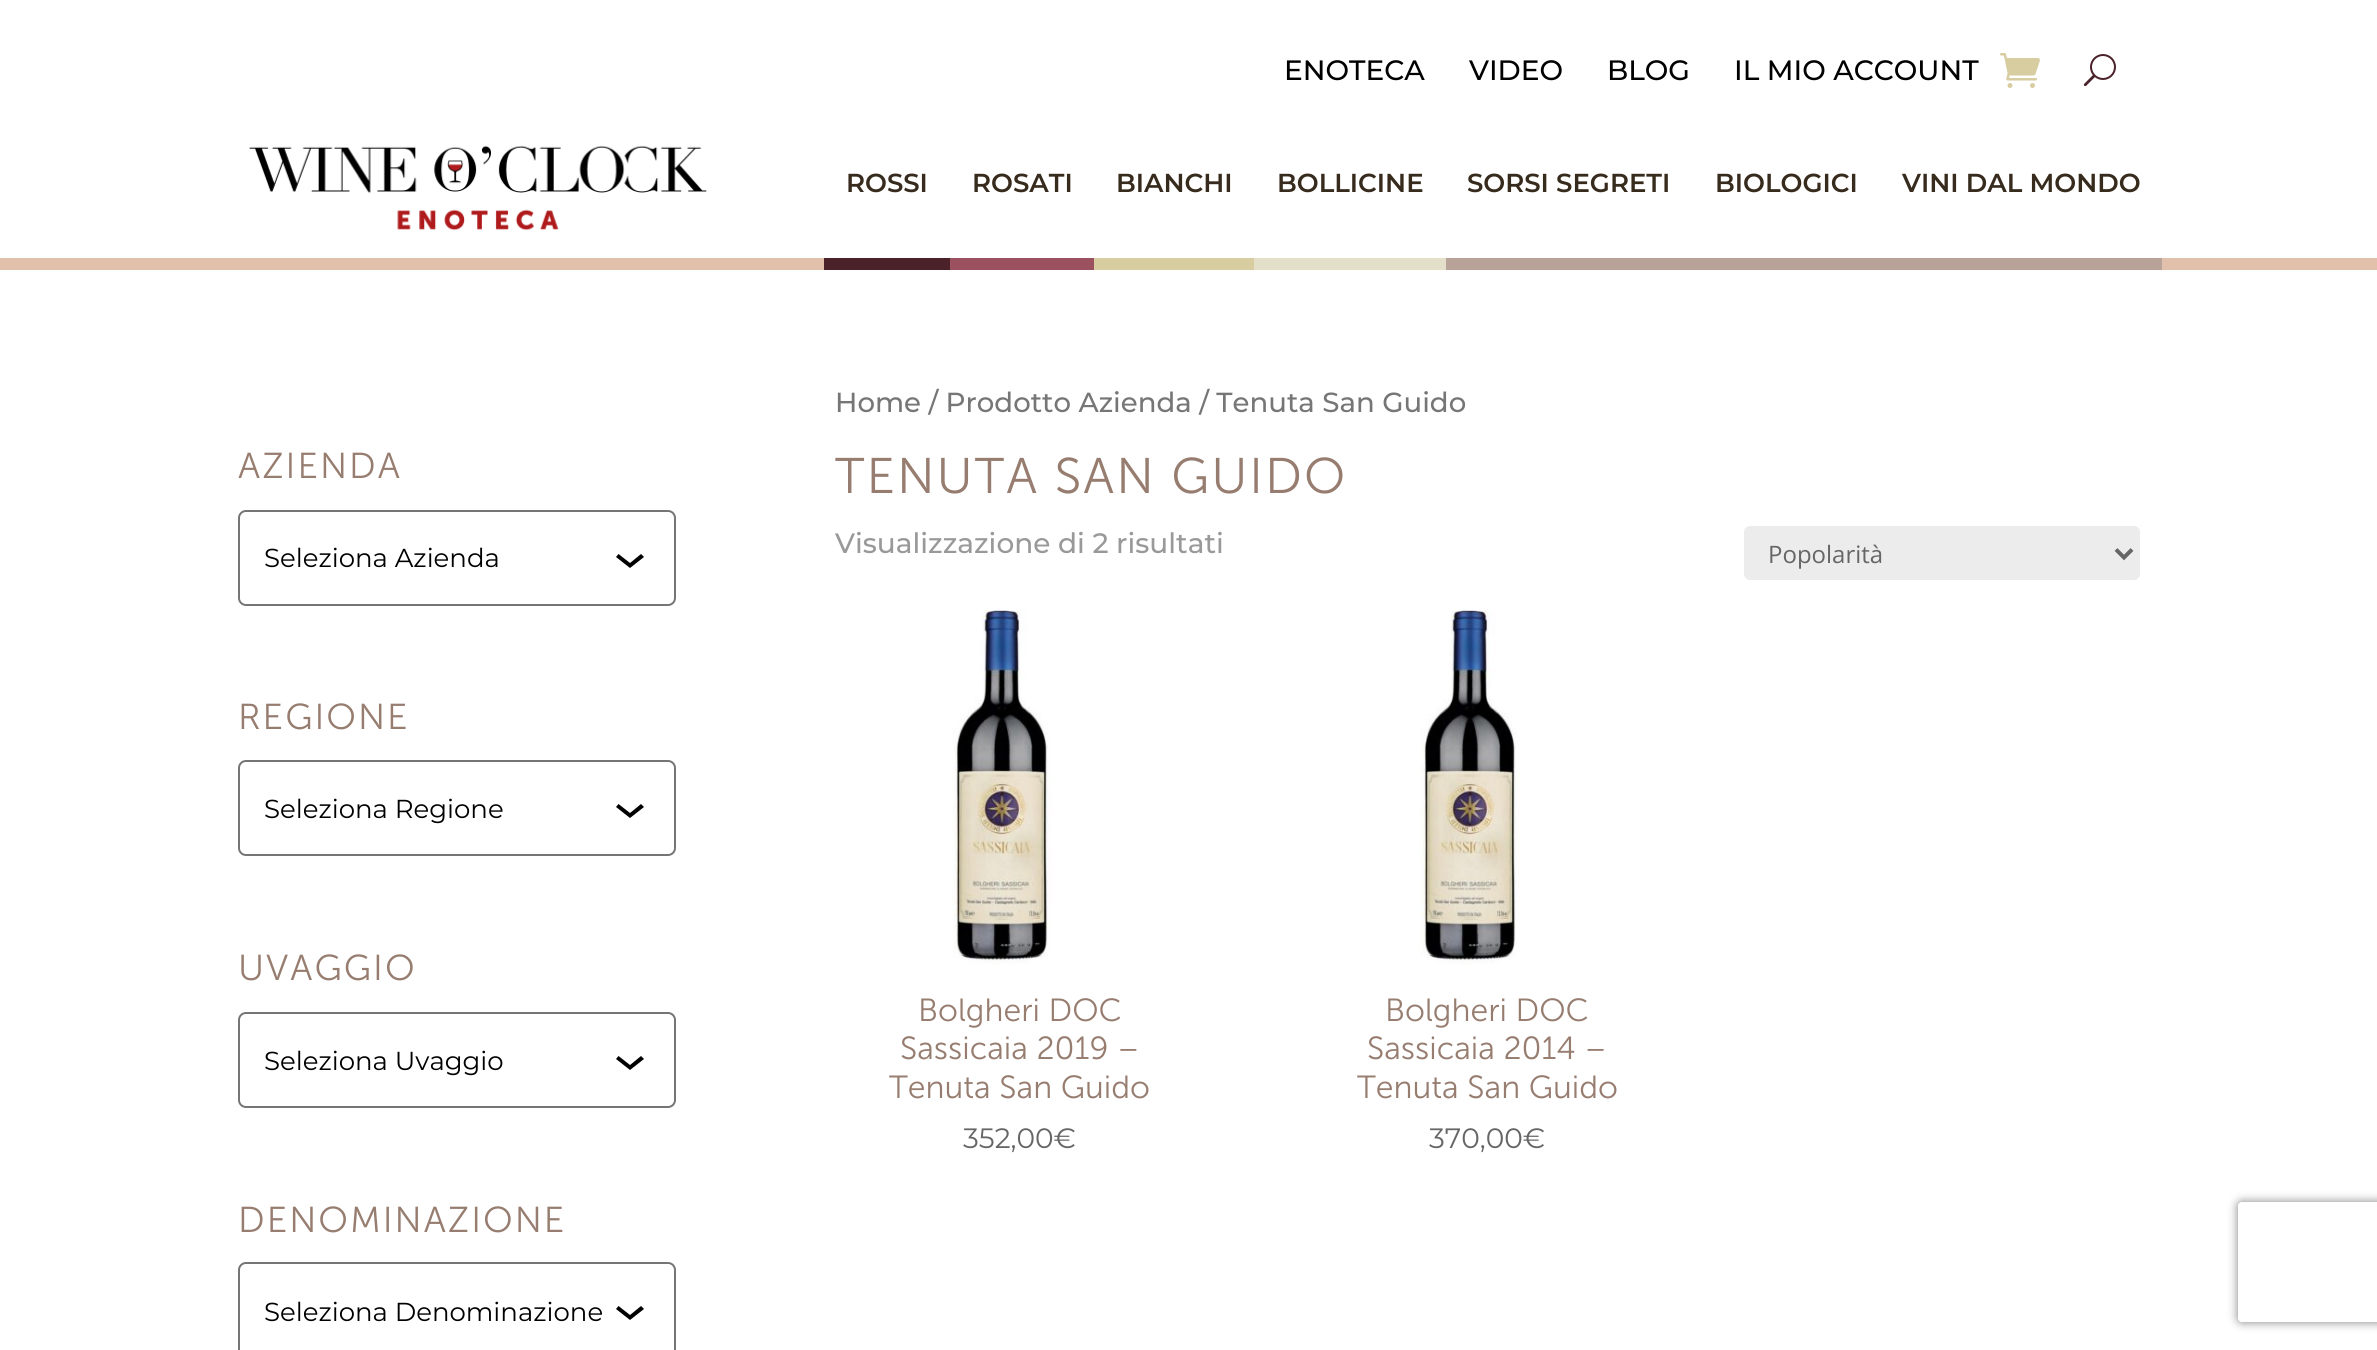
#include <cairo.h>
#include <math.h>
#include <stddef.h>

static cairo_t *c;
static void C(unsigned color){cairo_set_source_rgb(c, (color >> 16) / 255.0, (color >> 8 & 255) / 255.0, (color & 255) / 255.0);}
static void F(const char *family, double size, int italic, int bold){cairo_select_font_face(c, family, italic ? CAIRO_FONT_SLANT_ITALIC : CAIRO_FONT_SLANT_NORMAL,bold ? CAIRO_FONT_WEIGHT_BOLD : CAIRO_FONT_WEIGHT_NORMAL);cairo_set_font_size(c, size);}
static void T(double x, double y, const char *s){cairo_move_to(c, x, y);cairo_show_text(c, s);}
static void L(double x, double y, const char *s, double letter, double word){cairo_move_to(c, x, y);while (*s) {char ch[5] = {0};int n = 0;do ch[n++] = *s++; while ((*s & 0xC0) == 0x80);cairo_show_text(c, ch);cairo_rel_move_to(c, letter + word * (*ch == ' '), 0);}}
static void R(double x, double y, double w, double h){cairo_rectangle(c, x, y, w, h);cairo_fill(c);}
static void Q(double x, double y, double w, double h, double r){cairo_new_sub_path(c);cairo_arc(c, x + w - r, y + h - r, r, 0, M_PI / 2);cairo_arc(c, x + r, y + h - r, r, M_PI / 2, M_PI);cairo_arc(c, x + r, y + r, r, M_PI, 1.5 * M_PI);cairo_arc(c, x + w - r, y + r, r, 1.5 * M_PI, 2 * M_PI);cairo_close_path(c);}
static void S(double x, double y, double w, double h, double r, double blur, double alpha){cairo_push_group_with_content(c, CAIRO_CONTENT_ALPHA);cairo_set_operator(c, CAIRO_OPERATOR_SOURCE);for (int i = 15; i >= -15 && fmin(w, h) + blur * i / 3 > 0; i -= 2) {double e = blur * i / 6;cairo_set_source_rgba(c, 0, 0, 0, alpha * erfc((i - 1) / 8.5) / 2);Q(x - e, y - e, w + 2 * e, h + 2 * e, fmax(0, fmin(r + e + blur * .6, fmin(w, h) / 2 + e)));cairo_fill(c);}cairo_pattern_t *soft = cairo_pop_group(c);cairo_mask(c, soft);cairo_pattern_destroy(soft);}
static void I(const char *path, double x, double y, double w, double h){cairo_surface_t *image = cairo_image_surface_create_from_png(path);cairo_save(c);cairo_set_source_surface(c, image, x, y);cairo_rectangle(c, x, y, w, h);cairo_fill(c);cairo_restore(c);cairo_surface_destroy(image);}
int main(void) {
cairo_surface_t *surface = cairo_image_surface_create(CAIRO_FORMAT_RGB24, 2377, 1350);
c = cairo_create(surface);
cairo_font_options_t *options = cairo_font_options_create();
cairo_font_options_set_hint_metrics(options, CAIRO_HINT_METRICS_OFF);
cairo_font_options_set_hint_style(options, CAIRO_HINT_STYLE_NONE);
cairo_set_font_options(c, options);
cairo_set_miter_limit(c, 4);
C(0xffffff);
cairo_paint(c);
C(0xe1c1ac);
R(0,258,2377,12);
F("Montserrat Medium",28,0,0);
C(0x000000);
T(1284,80,"ENOTECA");
T(1469,80,"VIDEO");
T(1607,80,"BLOG");
T(1734,80,"IL MIO ACCOUNT");
I("1.png",2000,53,40,35);
I("2.png",2083,54,33,33);
I("3.png",249,145,458,86);
C(0x4b222a);
R(824,258,126,12);
F("Montserrat SemiBold",26,0,0);
C(0x372b1d);
T(846,192,"ROSSI");
C(0x9b5160);
R(950,258,144,12);
C(0x372b1d);
T(972,192,"ROSATI");
C(0xd7cda1);
R(1094,258,160,12);
C(0x372b1d);
T(1116,192,"BIANCHI");
C(0xe3dfc8);
R(1254,258,192,12);
C(0x372b1d);
T(1277,192,"BOLLICINE");
C(0xb9a398);
R(1446,258,716,12);
C(0x372b1d);
T(1467,192,"SORSI SEGRETI");
T(1715,192,"BIOLOGICI");
T(1902,192,"VINI DAL MONDO");
F("Museo Sans Light",36,0,0);
C(0x977d70);
L(238,478,"AZIENDA",2,0);
Q(239,511,436,94,7);
C(0x757575);
cairo_stroke(c);
C(0xffffff);
Q(240,512,434,92,8);
cairo_fill(c);
F("Montserrat",26,0,0);
C(0x000000);
T(264,567,"Seleziona Azienda");
cairo_new_path(c);
cairo_move_to(c,644,557);
cairo_line_to(c,630,568);
cairo_line_to(c,616,557);
cairo_line_to(c,618.5,554);
cairo_line_to(c,630,563);
cairo_line_to(c,641,554);
cairo_close_path(c);
cairo_fill(c);
F("Museo Sans Light",36,0,0);
C(0x977d70);
L(238,729,"REGIONE",2,0);
Q(239,761,436,94,7);
C(0x757575);
cairo_stroke(c);
C(0xffffff);
Q(240,762,434,92,8);
cairo_fill(c);
F("Montserrat",26,0,0);
C(0x000000);
T(264,818,"Seleziona Regione");
cairo_new_path(c);
cairo_move_to(c,644,807);
cairo_line_to(c,630,818);
cairo_line_to(c,616,807);
cairo_line_to(c,618.5,804);
cairo_line_to(c,630,813);
cairo_line_to(c,641,804);
cairo_close_path(c);
cairo_fill(c);
F("Museo Sans Light",36,0,0);
C(0x977d70);
L(238,980,"UVAGGIO",2,0);
Q(239,1013,436,94,7);
C(0x757575);
cairo_stroke(c);
C(0xffffff);
Q(240,1014,434,92,8);
cairo_fill(c);
F("Montserrat",26,0,0);
C(0x000000);
T(264,1070,"Seleziona Uvaggio");
cairo_new_path(c);
cairo_move_to(c,644,1059);
cairo_line_to(c,630,1070);
cairo_line_to(c,616,1059);
cairo_line_to(c,618.5,1056);
cairo_line_to(c,630,1065);
cairo_line_to(c,641,1056);
cairo_close_path(c);
cairo_fill(c);
F("Museo Sans Light",36,0,0);
C(0x977d70);
L(238,1232,"DENOMINAZIONE",2,0);
Q(239,1263,436,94,7);
C(0x757575);
cairo_stroke(c);
C(0xffffff);
Q(240,1264,434,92,8);
cairo_fill(c);
F("Montserrat",26,0,0);
C(0x000000);
T(264,1321,"Seleziona Denominazione");
cairo_new_path(c);
cairo_move_to(c,644,1309);
cairo_line_to(c,630,1320);
cairo_line_to(c,616,1309);
cairo_line_to(c,618.5,1306);
cairo_line_to(c,630,1315);
cairo_line_to(c,641,1306);
cairo_close_path(c);
cairo_fill(c);
F("Montserrat Medium",27.6,0,0);
C(0x767676);
T(835,412,"Home / Prodotto Azienda / Tenuta San Guido");
F("Museo Sans Light",50,0,0);
C(0x977d70);
L(835,493,"TENUTA SAN GUIDO",2,0);
F("Montserrat Medium",28,0,0);
C(0x999999);
T(835,553,"Visualizzazione di 2 risultati");
C(0xececec);
Q(1744,526,396,54,6);
cairo_fill(c);
cairo_new_path(c);
cairo_move_to(c,2116,549.5);
cairo_line_to(c,2124,557.5);
cairo_line_to(c,2132,549.5);
C(0x666666);
cairo_set_line_width(c,4);
cairo_stroke(c);
F("Open Sans",24,0,0);
T(1768,563,"Popolarità");
I("4.png",952,610,100,355);
F("Museo Sans Light",32,0,0);
C(0x977d70);
T(918,1021,"Bolgheri DOC");
T(900,1059,"Sassicaia 2019 –");
T(889,1098,"Tenuta San Guido");
F("Montserrat",28,0,0);
C(0x666666);
T(963,1148,"352,00€");
I("4.png",1420,610,100,355);
F("Museo Sans Light",32,0,0);
C(0x977d70);
T(1385,1021,"Bolgheri DOC");
T(1367,1059,"Sassicaia 2014 –");
T(1357,1098,"Tenuta San Guido");
F("Montserrat",28,0,0);
C(0x666666);
T(1429,1148,"370,00€");
cairo_save(c);
cairo_set_fill_rule(c,CAIRO_FILL_RULE_EVEN_ODD);
cairo_new_path(c);
cairo_move_to(c,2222,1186);
cairo_line_to(c,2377,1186);
cairo_line_to(c,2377,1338);
cairo_line_to(c,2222,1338);
cairo_close_path(c);
cairo_move_to(c,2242,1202);
cairo_line_to(c,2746,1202);
cairo_curve_to(c,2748,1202,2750,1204,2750,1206);
cairo_line_to(c,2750,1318);
cairo_curve_to(c,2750,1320,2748,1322,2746,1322);
cairo_line_to(c,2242,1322);
cairo_curve_to(c,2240,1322,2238,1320,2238,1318);
cairo_line_to(c,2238,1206);
cairo_curve_to(c,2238,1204,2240,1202,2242,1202);
cairo_close_path(c);
cairo_clip(c);
C(0x808080);
S(2238,1202,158,120,4,5,1);
cairo_restore(c);
cairo_surface_write_to_png(surface, "o.png");
cairo_font_options_destroy(options);
cairo_destroy(c);
cairo_surface_destroy(surface);
return 0;
}
